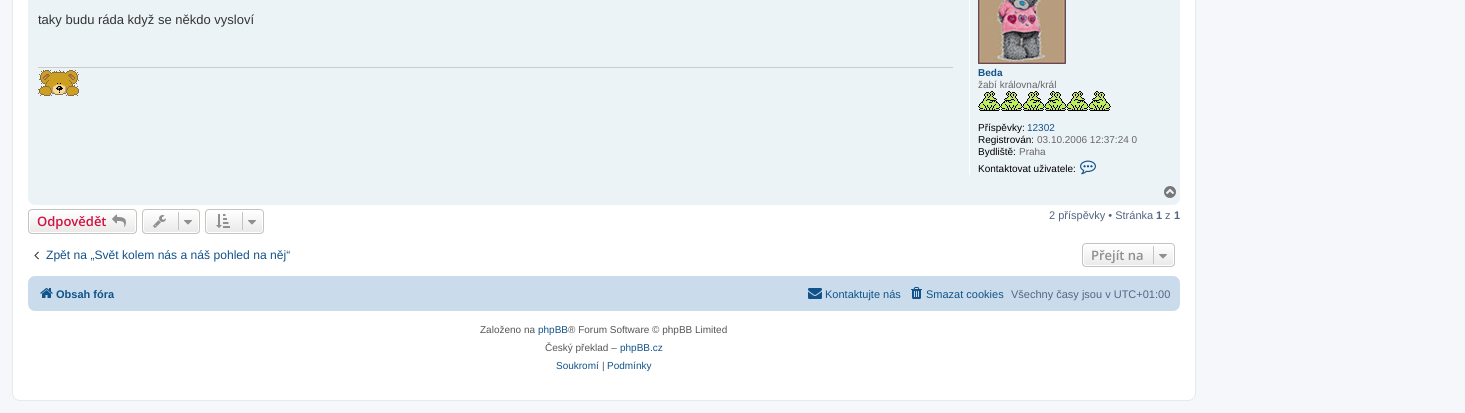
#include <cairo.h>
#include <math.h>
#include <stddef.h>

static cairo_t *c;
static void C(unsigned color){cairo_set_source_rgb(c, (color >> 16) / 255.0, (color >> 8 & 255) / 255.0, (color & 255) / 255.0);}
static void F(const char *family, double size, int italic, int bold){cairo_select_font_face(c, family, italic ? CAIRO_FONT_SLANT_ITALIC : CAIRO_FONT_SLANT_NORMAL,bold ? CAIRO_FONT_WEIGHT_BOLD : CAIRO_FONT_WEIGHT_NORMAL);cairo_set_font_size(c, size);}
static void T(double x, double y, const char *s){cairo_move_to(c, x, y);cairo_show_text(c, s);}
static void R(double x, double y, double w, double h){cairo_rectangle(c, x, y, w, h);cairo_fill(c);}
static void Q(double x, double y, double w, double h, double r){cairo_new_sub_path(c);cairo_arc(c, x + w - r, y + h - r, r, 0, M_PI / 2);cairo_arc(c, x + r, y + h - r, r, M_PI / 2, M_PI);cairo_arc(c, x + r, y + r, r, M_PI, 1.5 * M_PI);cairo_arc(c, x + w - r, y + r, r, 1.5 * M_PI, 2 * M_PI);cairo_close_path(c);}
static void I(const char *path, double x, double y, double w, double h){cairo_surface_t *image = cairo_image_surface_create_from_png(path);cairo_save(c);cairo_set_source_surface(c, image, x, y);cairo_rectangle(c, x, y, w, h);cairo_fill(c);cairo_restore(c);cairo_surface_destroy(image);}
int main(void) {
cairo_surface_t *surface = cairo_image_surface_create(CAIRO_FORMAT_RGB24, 1465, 413);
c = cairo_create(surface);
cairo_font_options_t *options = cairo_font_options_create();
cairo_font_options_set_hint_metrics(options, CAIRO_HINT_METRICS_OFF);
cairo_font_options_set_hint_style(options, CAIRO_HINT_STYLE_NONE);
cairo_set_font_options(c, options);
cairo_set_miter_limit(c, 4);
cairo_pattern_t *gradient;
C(0xf5f7fa);
cairo_paint(c);
C(0xffffff);
Q(12.5,-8.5,1183,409,7.5);
cairo_fill_preserve(c);
C(0xe6e9ed);
cairo_set_line_width(c,1);
cairo_stroke(c);
C(0xecf3f7);
Q(28,-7,1152,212,7);
cairo_fill(c);
F("Liberation Sans",13,0,0);
C(0x333333);
T(38,24,"taky budu ráda když se někdo vysloví");
C(0xcccccc);
R(38,67,915,1);
I("1.png",38,70,41,26);
C(0xffffff);
R(969,0,1,175);
I("2.png",978,0,88,64);
F("Liberation Sans",10,0,1);
C(0x105289);
T(978,76,"Beda");
F("Liberation Sans",10,0,0);
C(0x666666);
T(978,88,"žabí královna/král");
I("3.png",978,91,133,20);
C(0x000000);
T(978,131,"Příspěvky:");
C(0x105289);
T(1027,131,"12302");
C(0x000000);
T(978,143,"Registrován:");
C(0x666666);
T(1037,143,"03.10.2006 12:37:24 0");
C(0x000000);
T(978,155,"Bydliště:");
C(0x666666);
T(1019,155,"Praha");
C(0x000000);
T(978,172,"Kontaktovat uživatele:");
I("4.png",1080,160,16,15);
I("5.png",1164,186,12,12);
cairo_save(c);
Q(28,209,109,25,4);
cairo_clip(c);
gradient = cairo_pattern_create_linear(83,210,83,233);
cairo_pattern_add_color_stop_rgba(gradient,0,1,1,1,1);
cairo_pattern_add_color_stop_rgba(gradient,1,0.914,0.914,0.914,1);
cairo_set_source(c,gradient);
cairo_pattern_destroy(gradient);
R(28,210,109,23);
cairo_restore(c);
Q(29.5,210.5,106,22,2.5);
C(0xffffff);
cairo_stroke(c);
Q(28.5,209.5,108,24,3.5);
C(0xc7c3bf);
cairo_stroke(c);
F("Open Sans SemiBold",13,0,0);
C(0xd31141);
T(37,226,"Odpovědět");
I("6.png",112,214,14,13);
cairo_save(c);
Q(142,209,58,25,4);
cairo_clip(c);
gradient = cairo_pattern_create_linear(171,210,171,233);
cairo_pattern_add_color_stop_rgba(gradient,0,1,1,1,1);
cairo_pattern_add_color_stop_rgba(gradient,1,0.914,0.914,0.914,1);
cairo_set_source(c,gradient);
cairo_pattern_destroy(gradient);
R(142,210,58,23);
cairo_restore(c);
Q(143.5,210.5,55,22,2.5);
C(0xffffff);
cairo_stroke(c);
Q(142.5,209.5,57,24,3.5);
C(0xc7c3bf);
cairo_stroke(c);
I("7.png",153,215,13,13);
R(178,212,1,18);
I("8.png",184,220,8,5);
cairo_save(c);
Q(205,209,59,25,4);
cairo_clip(c);
gradient = cairo_pattern_create_linear(235,210,235,233);
cairo_pattern_add_color_stop_rgba(gradient,0,1,1,1,1);
cairo_pattern_add_color_stop_rgba(gradient,1,0.914,0.914,0.914,1);
cairo_set_source(c,gradient);
cairo_pattern_destroy(gradient);
R(205,210,59,23);
cairo_restore(c);
Q(206.5,210.5,56,22,2.5);
C(0xffffff);
cairo_stroke(c);
Q(205.5,209.5,58,24,3.5);
C(0xc7c3bf);
cairo_stroke(c);
I("9.png",216,214,14,14);
R(242,212,1,18);
I("8.png",248,220,8,5);
F("Liberation Sans",11,0,0);
C(0x536482);
T(1049,219,"2 příspěvky • Stránka");
F("Liberation Sans",11,0,1);
T(1156,219,"1");
F("Liberation Sans",11,0,0);
T(1165,219,"z");
F("Liberation Sans",11,0,1);
T(1174,219,"1");
I("10.png",34,251,5,9);
F("Liberation Sans",12.1,0,0);
C(0x105289);
T(46,259,"Zpět na „Svět kolem nás a náš pohled na něj“");
cairo_save(c);
Q(1082,243,93,24,4);
cairo_clip(c);
gradient = cairo_pattern_create_linear(1129,244,1129,266);
cairo_pattern_add_color_stop_rgba(gradient,0,1,1,1,1);
cairo_pattern_add_color_stop_rgba(gradient,1,0.914,0.914,0.914,1);
cairo_set_source(c,gradient);
cairo_pattern_destroy(gradient);
R(1082,244,93,22);
cairo_restore(c);
Q(1083.5,244.5,90,21,2.5);
C(0xffffff);
cairo_stroke(c);
Q(1082.5,243.5,92,23,3.5);
C(0xc7c3bf);
cairo_stroke(c);
F("Open Sans SemiBold",13,0,0);
C(0x8f8f8f);
T(1091,260,"Přejít na");
C(0xc7c3bf);
R(1153,246,1,18);
I("8.png",1159,254,8,5);
C(0xcadceb);
Q(28,276,1152,35,7);
cairo_fill(c);
I("11.png",40,288,13,10);
F("Liberation Sans",11,0,1);
C(0x105289);
T(56,298,"Obsah fóra");
I("12.png",808,288,14,11);
F("Liberation Sans",11,0,0);
T(825,298,"Kontaktujte nás");
I("13.png",911,287,11,12);
T(926,298,"Smazat cookies");
C(0x536482);
T(1011,298,"Všechny časy jsou v UTC+01:00");
F("Liberation Sans",10,0,0);
C(0x555555);
T(480,333,"Založeno na");
C(0x105289);
T(538,333,"phpBB");
C(0x555555);
T(568,333,"® Forum Software © phpBB Limited");
T(545,351,"Český překlad –");
C(0x105289);
T(620,351,"phpBB.cz");
T(556,369,"Soukromí");
C(0x555555);
T(602,369,"|");
C(0x105289);
T(607,369,"Podmínky");
cairo_surface_write_to_png(surface, "o.png");
cairo_font_options_destroy(options);
cairo_destroy(c);
cairo_surface_destroy(surface);
return 0;
}
